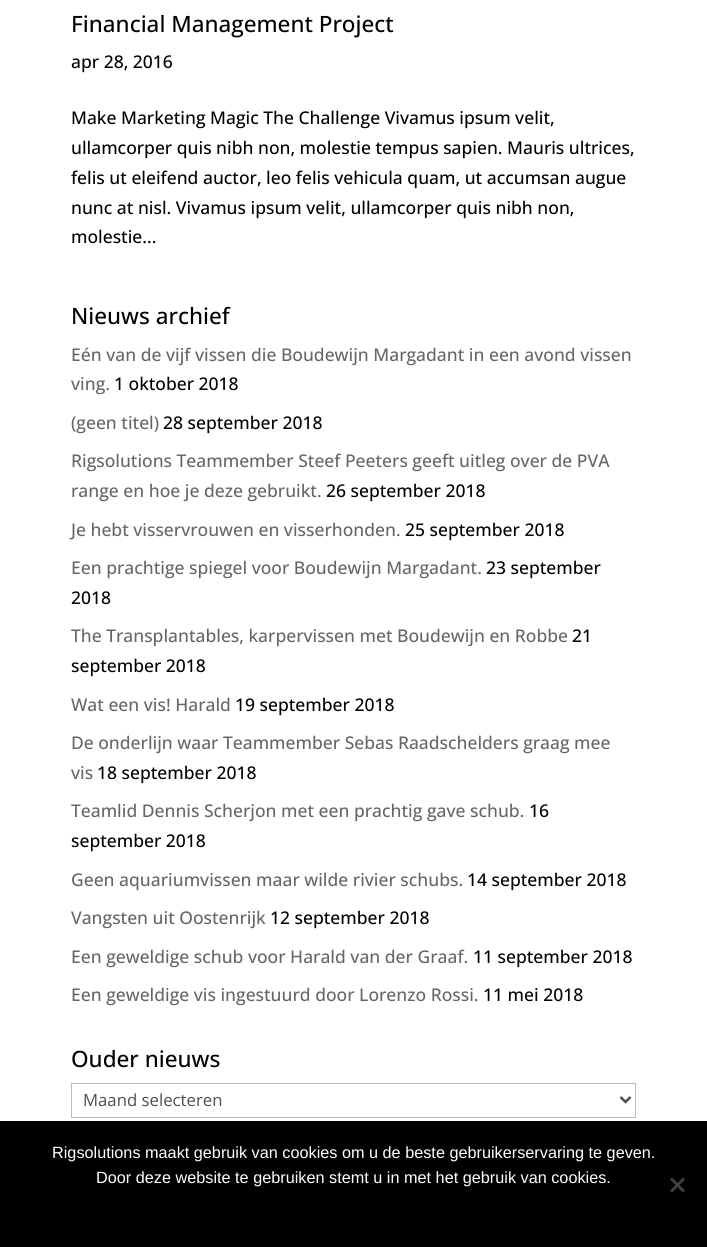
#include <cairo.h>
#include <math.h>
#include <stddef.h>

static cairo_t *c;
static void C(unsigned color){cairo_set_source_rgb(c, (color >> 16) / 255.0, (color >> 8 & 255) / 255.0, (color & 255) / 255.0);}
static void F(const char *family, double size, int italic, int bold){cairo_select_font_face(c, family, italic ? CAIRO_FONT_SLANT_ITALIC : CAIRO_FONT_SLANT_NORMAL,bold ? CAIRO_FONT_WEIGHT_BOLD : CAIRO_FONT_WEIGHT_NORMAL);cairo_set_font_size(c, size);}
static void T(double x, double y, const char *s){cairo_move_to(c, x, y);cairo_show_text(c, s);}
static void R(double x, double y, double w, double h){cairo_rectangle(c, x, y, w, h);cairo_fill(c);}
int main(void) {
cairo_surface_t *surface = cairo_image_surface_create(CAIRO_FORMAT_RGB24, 707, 1247);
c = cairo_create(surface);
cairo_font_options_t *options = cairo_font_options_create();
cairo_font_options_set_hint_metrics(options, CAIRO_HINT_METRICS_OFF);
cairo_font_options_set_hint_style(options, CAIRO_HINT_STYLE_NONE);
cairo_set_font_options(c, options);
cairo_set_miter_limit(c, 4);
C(0xffffff);
cairo_paint(c);
F("Open Sans Medium",22.5,0,0);
C(0x000000);
T(71,32,"Financial Management Project");
F("Open Sans Medium",17.5,0,0);
T(71,68,"apr 28, 2016");
T(71,124,"Make Marketing Magic The Challenge Vivamus ipsum velit,");
T(71,154,"ullamcorper quis nibh non, molestie tempus sapien. Mauris ultrices,");
T(71,184,"felis ut eleifend auctor, leo felis vehicula quam, ut accumsan augue");
T(71,214,"nunc at nisl. Vivamus ipsum velit, ullamcorper quis nibh non,");
T(71,243,"molestie...");
F("Open Sans Medium",22.5,0,0);
T(71,324,"Nieuws archief");
F("Open Sans Medium",17.5,0,0);
C(0x666666);
T(71,361,"Eén van de vijf vissen die Boudewijn Margadant in een avond vissen");
T(71,390,"ving.");
C(0x000000);
T(114,390,"1 oktober 2018");
C(0x666666);
T(71,429,"(geen titel)");
C(0x000000);
T(163,429,"28 september 2018");
C(0x666666);
T(71,467,"Rigsolutions Teammember Steef Peeters geeft uitleg over de PVA");
T(71,497,"range en hoe je deze gebruikt.");
C(0x000000);
T(326,497,"26 september 2018");
C(0x666666);
T(71,536,"Je hebt visservrouwen en visserhonden.");
C(0x000000);
T(405,536,"25 september 2018");
C(0x666666);
T(71,574,"Een prachtige spiegel voor Boudewijn Margadant.");
C(0x000000);
T(486,574,"23 september");
T(71,604,"2018");
C(0x666666);
T(71,642,"The Transplantables, karpervissen met Boudewijn en Robbe");
C(0x000000);
T(572,642,"21");
T(71,672,"september 2018");
C(0x666666);
T(71,711,"Wat een vis! Harald");
C(0x000000);
T(235,711,"19 september 2018");
C(0x666666);
T(71,749,"De onderlijn waar Teammember Sebas Raadschelders graag mee");
T(71,779,"vis");
C(0x000000);
T(97,779,"18 september 2018");
C(0x666666);
T(71,817,"Teamlid Dennis Scherjon met een prachtig gave schub.");
C(0x000000);
T(529,817,"16");
T(71,847,"september 2018");
C(0x666666);
T(71,886,"Geen aquariumvissen maar wilde rivier schubs.");
C(0x000000);
T(467,886,"14 september 2018");
C(0x666666);
T(71,924,"Vangsten uit Oostenrijk");
C(0x000000);
T(270,924,"12 september 2018");
C(0x666666);
T(71,963,"Een geweldige schub voor Harald van der Graaf.");
C(0x000000);
T(473,963,"11 september 2018");
C(0x666666);
T(71,1001,"Een geweldige vis ingestuurd door Lorenzo Rossi.");
C(0x000000);
T(483,1001,"11 mei 2018");
F("Open Sans Medium",22.5,0,0);
T(71,1067,"Ouder nieuws");
cairo_rectangle(c,71.5,1083.5,564,34);
C(0xbbbbbb);
cairo_set_line_width(c,1);
cairo_stroke(c);
cairo_new_path(c);
cairo_move_to(c,620.5,1097);
cairo_line_to(c,625.5,1102);
cairo_line_to(c,630.5,1097);
C(0x4e4e4e);
cairo_set_line_width(c,2.5);
cairo_stroke(c);
F("Open Sans",16.75,0,0);
T(83,1106,"Maand selecteren");
C(0x000000);
R(0,1121,707,126);
F("Liberation Sans",16.25,0,0);
C(0xffffff);
T(52,1158,"Rigsolutions maakt gebruik van cookies om u de beste gebruikerservaring te geven.");
T(96,1183,"Door deze website te gebruiken stemt u in met het gebruik van cookies.");
C(0x404040);
cairo_new_path(c);
cairo_move_to(c,683,1177.5);
cairo_line_to(c,685,1179.5);
cairo_line_to(c,672,1192.5);
cairo_line_to(c,670,1190.5);
cairo_close_path(c);
cairo_fill(c);
cairo_new_path(c);
cairo_move_to(c,670,1179.5);
cairo_line_to(c,672,1177.5);
cairo_line_to(c,685,1190.5);
cairo_line_to(c,683,1192.5);
cairo_close_path(c);
cairo_fill(c);
cairo_surface_write_to_png(surface, "o.png");
cairo_font_options_destroy(options);
cairo_destroy(c);
cairo_surface_destroy(surface);
return 0;
}
